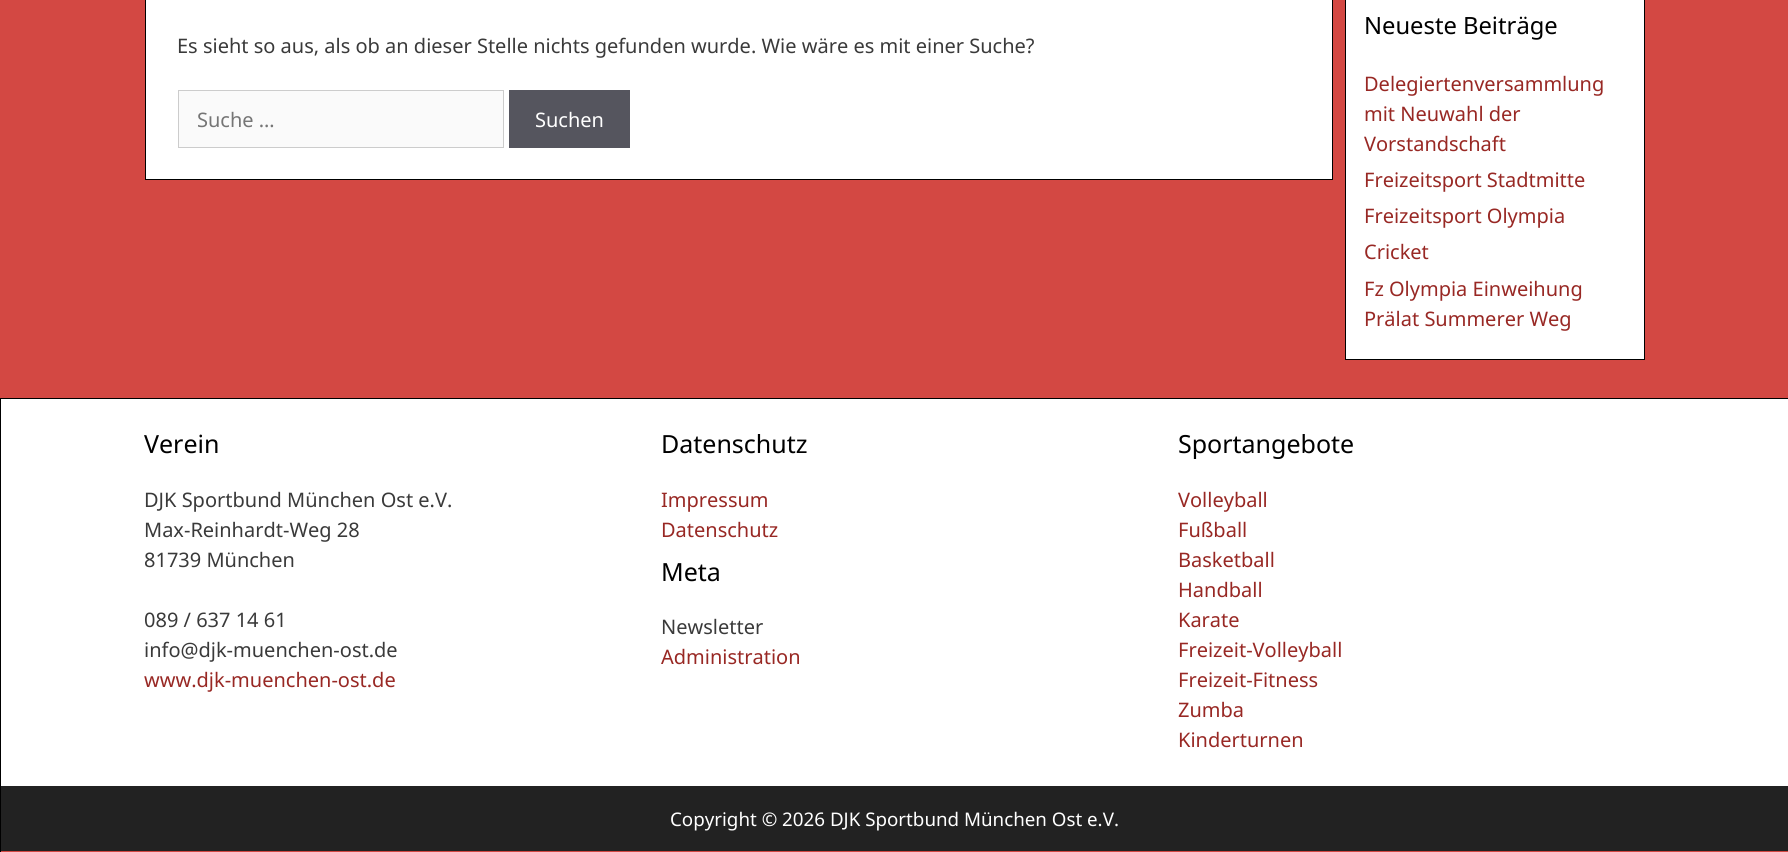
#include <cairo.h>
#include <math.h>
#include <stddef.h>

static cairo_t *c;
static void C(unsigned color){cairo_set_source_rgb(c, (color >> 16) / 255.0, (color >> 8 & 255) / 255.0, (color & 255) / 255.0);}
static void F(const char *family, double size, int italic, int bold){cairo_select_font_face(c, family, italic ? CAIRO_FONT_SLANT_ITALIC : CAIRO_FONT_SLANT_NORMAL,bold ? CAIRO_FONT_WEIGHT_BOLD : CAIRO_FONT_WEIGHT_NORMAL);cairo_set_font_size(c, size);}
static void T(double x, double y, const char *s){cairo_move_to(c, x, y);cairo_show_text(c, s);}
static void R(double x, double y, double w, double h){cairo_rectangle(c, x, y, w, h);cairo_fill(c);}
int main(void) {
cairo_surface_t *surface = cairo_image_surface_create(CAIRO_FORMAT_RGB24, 1788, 852);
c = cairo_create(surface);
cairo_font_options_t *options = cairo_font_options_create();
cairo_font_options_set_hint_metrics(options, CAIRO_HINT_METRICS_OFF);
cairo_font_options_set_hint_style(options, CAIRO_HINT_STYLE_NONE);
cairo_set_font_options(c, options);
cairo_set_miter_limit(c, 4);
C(0xd34843);
cairo_paint(c);
C(0xffffff);
cairo_rectangle(c,145.5,-.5,1187,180);
cairo_fill_preserve(c);
C(0x000000);
cairo_set_line_width(c,1);
cairo_stroke(c);
F("Noto Sans",20,0,0);
C(0x3a3a3a);
T(177,53,"Es sieht so aus, als ob an dieser Stelle nichts gefunden wurde. Wie wäre es mit einer Suche?");
C(0xfafafa);
cairo_rectangle(c,178.5,90.5,325,57);
cairo_fill_preserve(c);
C(0xcccccc);
cairo_stroke(c);
C(0x757575);
T(197,127,"Suche …");
C(0x55555e);
R(509,90,121,58);
C(0xffffff);
T(535,127,"Suchen");
cairo_rectangle(c,1345.5,-.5,299,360);
C(0x000000);
cairo_stroke(c);
C(0xffffff);
R(1346,0,298,359);
F("Noto Sans",23.75,0,0);
C(0x000000);
T(1364,34,"Neueste Beiträge");
F("Noto Sans",20,0,0);
C(0x982824);
T(1364,91,"Delegiertenversammlung");
T(1364,121,"mit Neuwahl der");
T(1364,151,"Vorstandschaft");
T(1364,187,"Freizeitsport Stadtmitte");
T(1364,223,"Freizeitsport Olympia");
T(1364,259,"Cricket");
T(1364,296,"Fz Olympia Einweihung");
T(1364,326,"Prälat Summerer Weg");
cairo_rectangle(c,.5,398.5,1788,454);
C(0x000000);
cairo_stroke(c);
C(0xffffff);
R(1,399,1787,387);
F("Noto Sans",25,0,0);
C(0x000000);
T(144,453,"Verein");
F("Noto Sans",20,0,0);
C(0x3a3a3a);
T(144,507,"DJK Sportbund München Ost e.V.");
T(144,537,"Max-Reinhardt-Weg 28");
T(144,567,"81739 München");
T(144,627,"089 / 637 14 61");
T(144,657,"info@djk-muenchen-ost.de");
C(0x982824);
T(144,687,"www.djk-muenchen-ost.de");
F("Noto Sans",25,0,0);
C(0x000000);
T(661,453,"Datenschutz");
F("Noto Sans",20,0,0);
C(0x982824);
T(661,507,"Impressum");
T(661,537,"Datenschutz");
F("Noto Sans",25,0,0);
C(0x000000);
T(661,581,"Meta");
F("Noto Sans",20,0,0);
C(0x3a3a3a);
T(661,634,"Newsletter");
C(0x982824);
T(661,664,"Administration");
F("Noto Sans",25,0,0);
C(0x000000);
T(1178,453,"Sportangebote");
F("Noto Sans",20,0,0);
C(0x982824);
T(1178,507,"Volleyball");
T(1178,537,"Fußball");
T(1178,567,"Basketball");
T(1178,597,"Handball");
T(1178,627,"Karate");
T(1178,657,"Freizeit-Volleyball");
T(1178,687,"Freizeit-Fitness");
T(1178,717,"Zumba");
T(1178,747,"Kinderturnen");
C(0x222222);
R(1,786,1787,65);
F("Noto Sans",18.75,0,0);
C(0xffffff);
T(670,826,"Copyright © 2026 DJK Sportbund München Ost e.V.");
cairo_surface_write_to_png(surface, "o.png");
cairo_font_options_destroy(options);
cairo_destroy(c);
cairo_surface_destroy(surface);
return 0;
}
